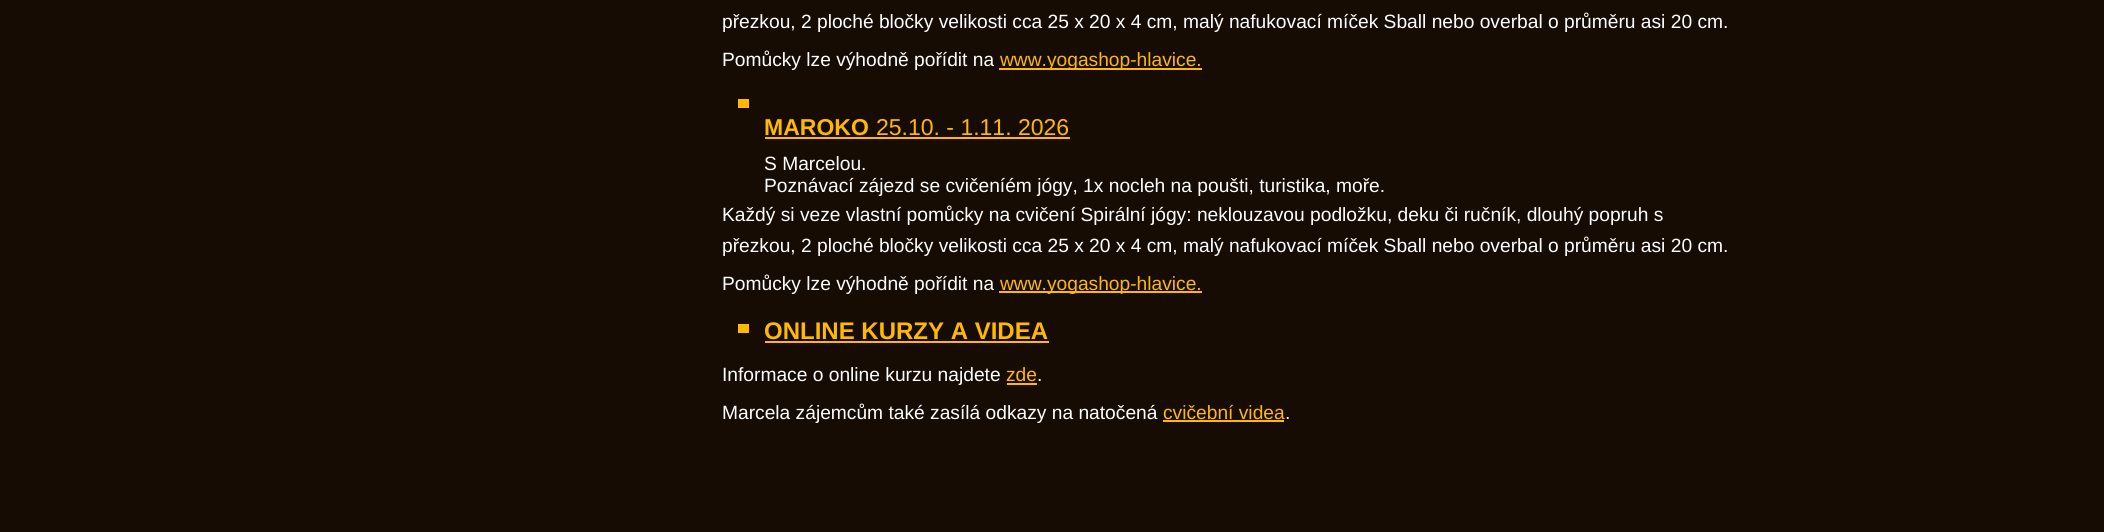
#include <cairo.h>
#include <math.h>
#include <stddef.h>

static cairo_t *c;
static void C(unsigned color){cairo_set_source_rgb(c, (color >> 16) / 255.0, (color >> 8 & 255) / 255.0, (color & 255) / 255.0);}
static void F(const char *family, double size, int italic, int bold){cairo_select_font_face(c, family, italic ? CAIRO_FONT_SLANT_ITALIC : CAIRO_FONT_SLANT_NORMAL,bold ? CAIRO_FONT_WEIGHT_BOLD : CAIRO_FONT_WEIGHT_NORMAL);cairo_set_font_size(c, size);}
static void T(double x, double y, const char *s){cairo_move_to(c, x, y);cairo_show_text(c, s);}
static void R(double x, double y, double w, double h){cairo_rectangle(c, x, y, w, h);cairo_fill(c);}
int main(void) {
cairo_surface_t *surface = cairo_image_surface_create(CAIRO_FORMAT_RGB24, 2104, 532);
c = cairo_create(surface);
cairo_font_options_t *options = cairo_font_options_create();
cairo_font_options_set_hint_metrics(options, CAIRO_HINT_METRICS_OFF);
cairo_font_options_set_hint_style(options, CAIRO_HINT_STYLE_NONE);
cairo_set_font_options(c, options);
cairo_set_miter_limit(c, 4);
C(0x160c04);
cairo_paint(c);
F("Liberation Sans",19.2,0,0);
C(0xffffff);
T(722,28,"přezkou, 2 ploché bločky velikosti cca 25 x 20 x 4 cm, malý nafukovací míček Sball nebo overbal o průměru asi 20 cm.");
T(722,66,"Pomůcky lze výhodně pořídit na");
C(0xffb901);
R(999,68,203,2);
T(1000,66,"www.yogashop-hlavice.");
R(738,99,11,9);
F("Liberation Sans",23,0,1);
T(764,135,"MAROKO");
R(765,137,305,2);
F("Liberation Sans",23,0,0);
T(876,135,"25.10. - 1.11. 2026");
F("Liberation Sans",19.2,0,0);
C(0xffffff);
T(764,170,"S Marcelou.");
T(764,192,"Poznávací zájezd se cvičeníém jógy, 1x nocleh na poušti, turistika, moře.");
T(722,221,"Každý si veze vlastní pomůcky na cvičení Spirální jógy: neklouzavou podložku, deku či ručník, dlouhý popruh s");
T(722,252,"přezkou, 2 ploché bločky velikosti cca 25 x 20 x 4 cm, malý nafukovací míček Sball nebo overbal o průměru asi 20 cm.");
T(722,290,"Pomůcky lze výhodně pořídit na");
C(0xffb901);
R(999,291,203,2);
T(1000,290,"www.yogashop-hlavice.");
R(738,324,11,9);
F("Liberation Sans",24,0,1);
T(764,339,"ONLINE KURZY A VIDEA");
R(765,341,284,2);
F("Liberation Sans",19.2,0,0);
C(0xffffff);
T(722,381,"Informace o online kurzu najdete");
C(0xffb901);
T(1006,381,"zde");
R(1007,383,30,2);
C(0xffffff);
T(1037,381,".");
T(722,419,"Marcela zájemcům také zasílá odkazy na natočená");
C(0xffb901);
T(1163,419,"cvičební videa");
R(1163,420,121,2);
C(0xffffff);
T(1285,419,".");
cairo_surface_write_to_png(surface, "o.png");
cairo_font_options_destroy(options);
cairo_destroy(c);
cairo_surface_destroy(surface);
return 0;
}
